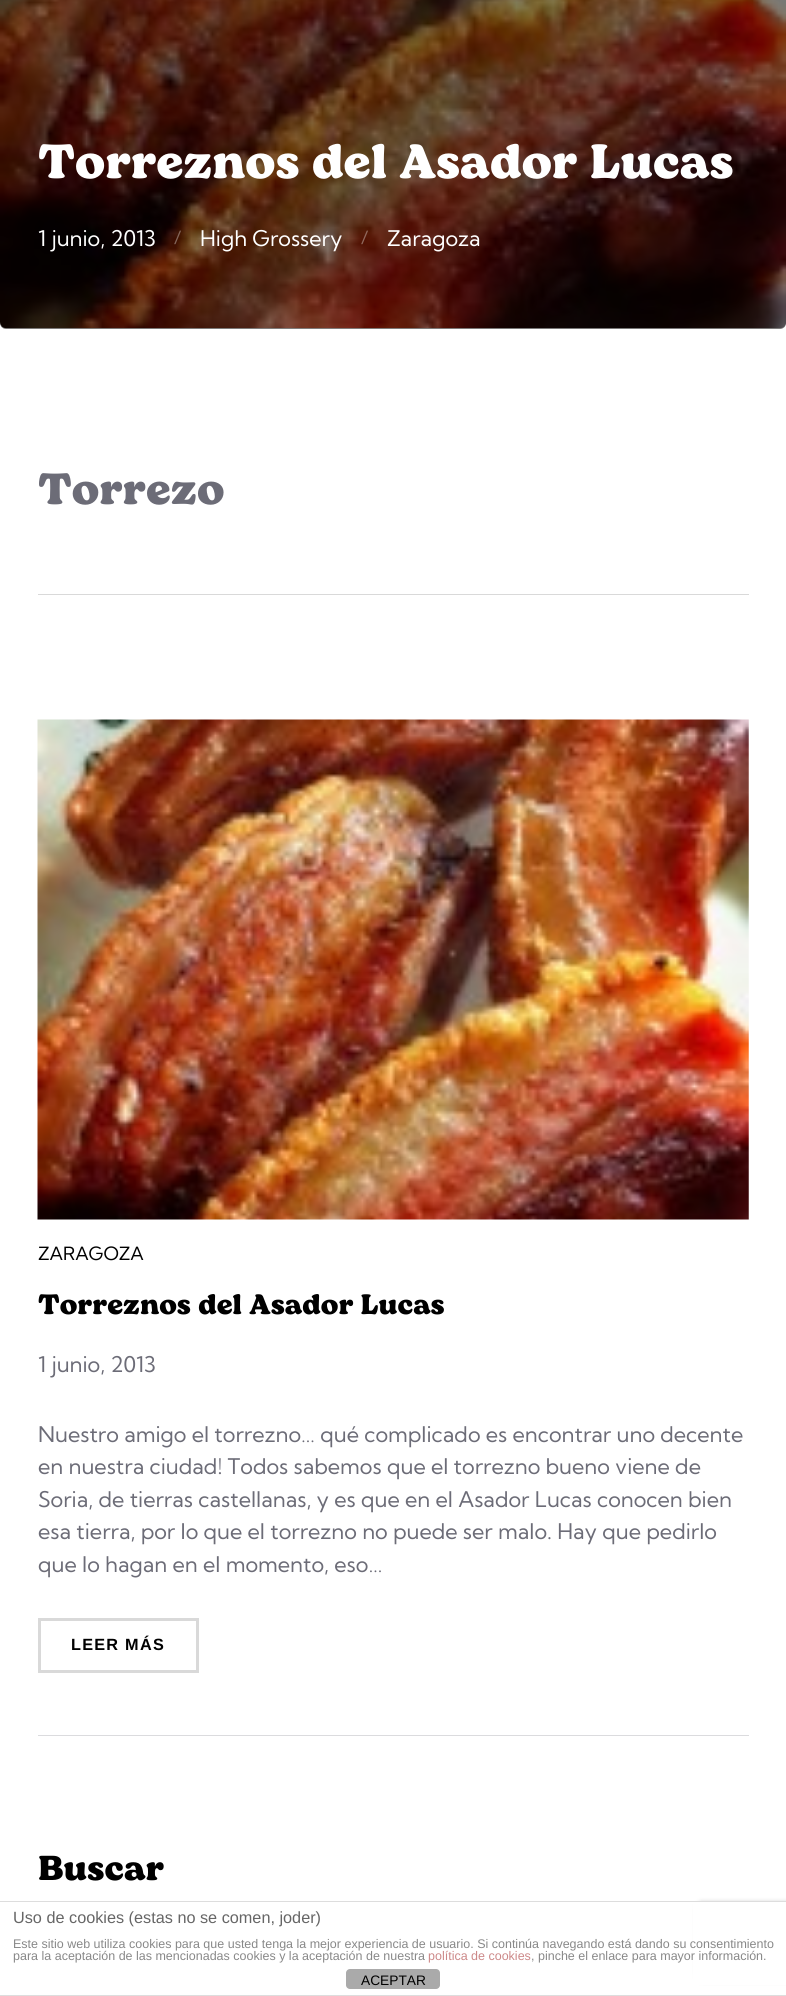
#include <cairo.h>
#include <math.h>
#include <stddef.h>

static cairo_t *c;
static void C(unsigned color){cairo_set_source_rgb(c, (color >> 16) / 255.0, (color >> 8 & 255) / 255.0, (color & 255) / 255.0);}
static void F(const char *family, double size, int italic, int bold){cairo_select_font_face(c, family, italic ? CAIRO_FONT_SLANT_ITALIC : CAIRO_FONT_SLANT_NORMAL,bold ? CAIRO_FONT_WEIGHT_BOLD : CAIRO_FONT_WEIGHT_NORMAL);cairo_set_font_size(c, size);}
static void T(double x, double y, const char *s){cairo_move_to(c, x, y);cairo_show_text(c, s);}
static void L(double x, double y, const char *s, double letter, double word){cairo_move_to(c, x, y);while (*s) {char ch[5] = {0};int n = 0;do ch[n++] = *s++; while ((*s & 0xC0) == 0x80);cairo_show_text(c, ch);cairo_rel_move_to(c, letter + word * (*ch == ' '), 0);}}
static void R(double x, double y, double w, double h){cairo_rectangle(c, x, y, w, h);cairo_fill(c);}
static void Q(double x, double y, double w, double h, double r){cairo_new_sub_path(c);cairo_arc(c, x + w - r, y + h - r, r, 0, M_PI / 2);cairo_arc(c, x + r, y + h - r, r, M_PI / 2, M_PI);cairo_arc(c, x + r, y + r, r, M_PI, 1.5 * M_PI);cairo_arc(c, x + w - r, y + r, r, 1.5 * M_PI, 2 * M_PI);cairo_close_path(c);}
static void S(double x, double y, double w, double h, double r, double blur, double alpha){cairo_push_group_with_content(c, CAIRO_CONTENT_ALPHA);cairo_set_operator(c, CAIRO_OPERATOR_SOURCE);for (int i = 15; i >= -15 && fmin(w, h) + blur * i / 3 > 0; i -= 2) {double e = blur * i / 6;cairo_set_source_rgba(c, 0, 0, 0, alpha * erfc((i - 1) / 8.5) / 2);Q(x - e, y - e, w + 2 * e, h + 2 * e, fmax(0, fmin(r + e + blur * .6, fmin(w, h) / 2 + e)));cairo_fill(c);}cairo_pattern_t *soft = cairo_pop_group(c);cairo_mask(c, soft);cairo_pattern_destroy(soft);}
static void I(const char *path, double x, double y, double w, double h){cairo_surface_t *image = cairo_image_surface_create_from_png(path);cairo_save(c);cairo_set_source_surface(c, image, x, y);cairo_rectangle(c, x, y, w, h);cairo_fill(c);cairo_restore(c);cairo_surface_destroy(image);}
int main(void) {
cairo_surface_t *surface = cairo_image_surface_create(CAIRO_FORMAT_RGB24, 786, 1996);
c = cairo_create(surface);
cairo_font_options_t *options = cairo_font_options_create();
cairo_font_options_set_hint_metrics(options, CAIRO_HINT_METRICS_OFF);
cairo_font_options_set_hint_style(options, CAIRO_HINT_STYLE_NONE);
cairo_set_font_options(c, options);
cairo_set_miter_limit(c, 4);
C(0xffffff);
cairo_paint(c);
I("1.png",0,0,786,329);
cairo_set_source_rgba(c,0,0,0,0.5);
Q(0,-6,786,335,6);
cairo_fill(c);
F("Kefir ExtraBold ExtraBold",45.5,0,0);
C(0xffffff);
T(38,178,"Torreznos del Asador Lucas");
F("Kumbh Sans",21.6,0,0);
T(38,246,"1 junio, 2013");
F("Kumbh Sans",18,0,0);
C(0x83665b);
T(174,244,"/");
F("Kumbh Sans",21.6,0,0);
C(0xffffff);
T(200,246,"High Grossery");
F("Kumbh Sans",18,0,0);
C(0x90685d);
T(361,244,"/");
F("Kumbh Sans",21.6,0,0);
C(0xffffff);
T(387,246,"Zaragoza");
F("Kefir ExtraBold ExtraBold",41.5,0,0);
C(0x6c6c77);
T(38,504,"Torrezo");
C(0xd9d9d9);
R(38,594,711,1);
I("2.png",37,719,712,501);
F("Kumbh Sans",18.25,0,0);
C(0x000000);
T(38,1260,"ZARAGOZA");
F("Kefir ExtraBold ExtraBold",26.6,0,0);
T(38,1314,"Torreznos del Asador Lucas");
F("Kumbh Sans",21.6,0,0);
C(0x6c6c77);
T(38,1372,"1 junio, 2013");
T(38,1442,"Nuestro amigo el torrezno… qué complicado es encontrar uno decente");
T(38,1474,"en nuestra ciudad! Todos sabemos que el torrezno bueno viene de");
T(38,1507,"Soria, de tierras castellanas, y es que en el Asador Lucas conocen bien");
T(38,1539,"esa tierra, por lo que el torrezno no puede ser malo. Hay que pedirlo");
T(38,1572,"que lo hagan en el momento, eso…");
cairo_rectangle(c,39.5,1619.5,158,52);
C(0xd9d9d9);
cairo_set_line_width(c,3);
cairo_stroke(c);
F("Liberation Sans",16.25,0,1);
C(0x000000);
L(71,1650,"LEER MÁS",1.25,0);
C(0xdbdbde);
R(38,1735,711,1);
F("Kefir ExtraBold ExtraBold",33,0,0);
C(0x000000);
T(38,1880,"Buscar");
C(0x808080);
S(699,1904,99,75,2.5,3,1);
C(0xffffff);
R(693,1902,93,83);
C(0xdddddd);
R(0,1901,786,1);
R(0,1995,786,1);
F("Liberation Sans",16.25,0,0);
C(0x666666);
T(13,1923,"Uso de cookies (estas no se comen, joder)");
F("Liberation Sans",12.5,0,0);
C(0x888888);
T(13,1948,"Este sitio web utiliza cookies para que usted tenga la mejor experiencia de usuario. Si continúa navegando está dando su consentimiento");
T(13,1960,"para la aceptación de las mencionadas cookies y la aceptación de nuestra");
C(0xcc8888);
T(428,1960,"política de cookies");
C(0x888888);
T(531,1960,", pinche el enlace para mayor información.");
C(0xaaaaaa);
Q(346,1969,94,20,4);
cairo_fill(c);
F("Liberation Sans",13.75,0,0);
C(0x000000);
T(361,1985,"ACEPTAR");
cairo_surface_write_to_png(surface, "o.png");
cairo_font_options_destroy(options);
cairo_destroy(c);
cairo_surface_destroy(surface);
return 0;
}
